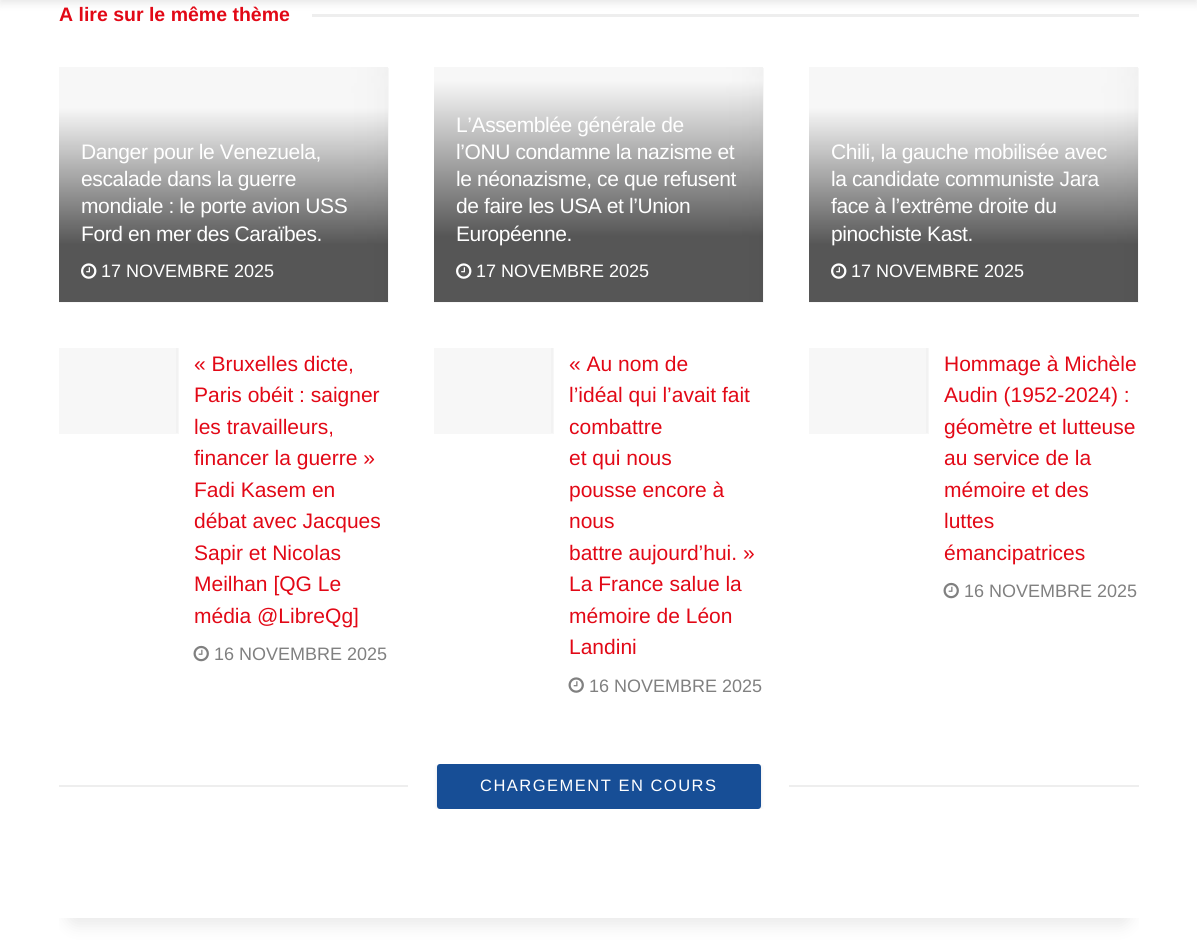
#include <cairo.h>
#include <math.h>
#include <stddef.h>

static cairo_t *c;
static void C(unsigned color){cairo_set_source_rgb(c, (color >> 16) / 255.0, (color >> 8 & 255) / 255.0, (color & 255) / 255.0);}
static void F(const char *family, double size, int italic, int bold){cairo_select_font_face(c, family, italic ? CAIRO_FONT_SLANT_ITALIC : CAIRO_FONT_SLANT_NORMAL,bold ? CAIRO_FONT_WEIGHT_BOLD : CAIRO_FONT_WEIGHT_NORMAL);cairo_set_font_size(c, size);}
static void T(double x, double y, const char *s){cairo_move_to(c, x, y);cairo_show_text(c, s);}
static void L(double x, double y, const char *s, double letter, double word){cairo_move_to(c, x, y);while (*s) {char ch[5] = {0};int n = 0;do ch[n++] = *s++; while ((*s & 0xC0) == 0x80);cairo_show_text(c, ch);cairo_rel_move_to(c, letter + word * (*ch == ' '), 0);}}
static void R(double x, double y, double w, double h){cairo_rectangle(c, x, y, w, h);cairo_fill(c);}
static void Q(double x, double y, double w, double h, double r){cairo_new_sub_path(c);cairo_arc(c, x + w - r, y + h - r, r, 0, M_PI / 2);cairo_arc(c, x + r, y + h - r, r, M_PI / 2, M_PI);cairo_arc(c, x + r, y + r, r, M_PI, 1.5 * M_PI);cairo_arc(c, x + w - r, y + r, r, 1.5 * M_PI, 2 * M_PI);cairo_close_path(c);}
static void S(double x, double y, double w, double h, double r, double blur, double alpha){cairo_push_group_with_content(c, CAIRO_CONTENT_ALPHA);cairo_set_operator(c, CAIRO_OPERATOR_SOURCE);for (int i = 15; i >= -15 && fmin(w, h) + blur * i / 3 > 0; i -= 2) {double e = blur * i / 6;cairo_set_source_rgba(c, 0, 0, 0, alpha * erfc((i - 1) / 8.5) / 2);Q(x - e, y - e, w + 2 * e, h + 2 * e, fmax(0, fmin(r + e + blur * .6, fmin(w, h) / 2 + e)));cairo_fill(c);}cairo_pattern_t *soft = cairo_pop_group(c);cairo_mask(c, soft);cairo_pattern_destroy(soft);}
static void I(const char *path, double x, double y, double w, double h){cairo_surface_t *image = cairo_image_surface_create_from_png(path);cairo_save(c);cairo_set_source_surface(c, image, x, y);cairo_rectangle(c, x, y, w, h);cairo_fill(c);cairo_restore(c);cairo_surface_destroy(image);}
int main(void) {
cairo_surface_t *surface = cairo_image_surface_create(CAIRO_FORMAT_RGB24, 1197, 942);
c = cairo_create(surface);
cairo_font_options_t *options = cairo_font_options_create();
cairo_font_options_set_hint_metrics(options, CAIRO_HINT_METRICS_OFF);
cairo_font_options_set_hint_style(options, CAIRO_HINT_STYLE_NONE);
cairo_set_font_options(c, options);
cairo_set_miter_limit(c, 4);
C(0xffffff);
cairo_paint(c);
C(0xeeeeee);
R(312,14,827,3);
C(0x000000);
S(0,-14,1197,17,0,4.5,.1);
F("Liberation Sans",19.5,0,1);
C(0xe20816);
T(59,21,"A lire sur le même thème");
C(0xf7f7f7);
R(59,68,330,235);
I("1.png",59,67,329,235);
F("Liberation Sans",21,0,0);
C(0xffffff);
L(81,159,"Danger pour le Venezuela,",-.4,0);
L(81,186,"escalade dans la guerre",-.4,0);
L(81,213,"mondiale : le porte avion USS",-.4,0);
L(81,241,"Ford en mer des Caraïbes.",-.4,0);
I("2.png",81,263,16,16);
F("Liberation Sans",18,0,0);
T(101,277,"17 NOVEMBRE 2025");
C(0xf7f7f7);
R(434,68,330,235);
I("3.png",434,67,329,235);
F("Liberation Sans",21,0,0);
C(0xffffff);
L(456,132,"L’Assemblée générale de",-.4,0);
L(456,159,"l’ONU condamne la nazisme et",-.4,0);
L(456,186,"le néonazisme, ce que refusent",-.4,0);
L(456,213,"de faire les USA et l’Union",-.4,0);
L(456,241,"Européenne.",-.4,0);
I("2.png",456,263,16,16);
F("Liberation Sans",18,0,0);
T(476,277,"17 NOVEMBRE 2025");
C(0xf7f7f7);
R(809,68,330,235);
I("1.png",809,67,329,235);
F("Liberation Sans",21,0,0);
C(0xffffff);
L(831,159,"Chili, la gauche mobilisée avec",-.4,0);
L(831,186,"la candidate communiste Jara",-.4,0);
L(831,213,"face à l’extrême droite du",-.4,0);
L(831,241,"pinochiste Kast.",-.4,0);
I("2.png",831,263,16,16);
F("Liberation Sans",18,0,0);
T(851,277,"17 NOVEMBRE 2025");
C(0xf7f7f7);
R(59,348,120,86);
C(0xf2f2f2);
R(176,348,2,85);
F("Liberation Sans",21,0,0);
C(0xe20816);
T(194,371,"« Bruxelles dicte,");
T(194,402,"Paris obéit : saigner");
T(194,434,"les travailleurs,");
T(194,465,"financer la guerre »");
T(194,497,"Fadi Kasem en");
T(194,528,"débat avec Jacques");
T(194,560,"Sapir et Nicolas");
T(194,591,"Meilhan [QG Le");
T(194,623,"média @LibreQg]");
I("4.png",193,645,16,17);
F("Liberation Sans",18,0,0);
C(0x808080);
T(214,660,"16 NOVEMBRE 2025");
C(0xf7f7f7);
R(434,348,120,86);
C(0xf2f2f2);
R(551,348,2,85);
F("Liberation Sans",21,0,0);
C(0xe20816);
T(569,371,"« Au nom de");
T(569,402,"l’idéal qui l’avait fait");
T(569,434,"combattre");
T(569,465,"et qui nous");
T(569,497,"pousse encore à");
T(569,528,"nous");
T(569,560,"battre aujourd’hui. »");
T(569,591,"La France salue la");
T(569,623,"mémoire de Léon");
T(569,654,"Landini");
I("5.png",568,677,16,16);
F("Liberation Sans",18,0,0);
C(0x808080);
T(589,692,"16 NOVEMBRE 2025");
C(0xf7f7f7);
R(809,348,120,86);
C(0xf2f2f2);
R(926,348,2,85);
F("Liberation Sans",21,0,0);
C(0xe20816);
T(944,371,"Hommage à Michèle");
T(944,402,"Audin (1952-2024) :");
T(944,434,"géomètre et lutteuse");
T(944,465,"au service de la");
T(944,497,"mémoire et des");
T(944,528,"luttes");
T(944,560,"émancipatrices");
I("4.png",943,582,16,17);
F("Liberation Sans",18,0,0);
C(0x808080);
T(964,597,"16 NOVEMBRE 2025");
cairo_save(c);
cairo_rectangle(c,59,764,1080,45);
cairo_clip(c);
C(0x000000);
S(437,765,324,45,3,2,.1);
cairo_restore(c);
C(0x174e96);
Q(438,765,322,43,2);
cairo_fill_preserve(c);
cairo_stroke(c);
C(0xeeeeee);
R(59,785,349,2);
F("Liberation Sans",16.5,0,0);
C(0xffffff);
L(480,791,"CHARGEMENT EN COURS",1.5,0);
C(0xeeeeee);
R(789,785,350,2);
cairo_save(c);
cairo_rectangle(c,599,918,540,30);
cairo_clip(c);
C(0xebebeb);
S(36,896,1095,30,15,7.5,1);
cairo_restore(c);
cairo_save(c);
cairo_rectangle(c,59,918,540,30);
cairo_clip(c);
C(0xebebeb);
S(66,896,1095,30,15,7.5,1);
cairo_restore(c);
cairo_surface_write_to_png(surface, "o.png");
cairo_font_options_destroy(options);
cairo_destroy(c);
cairo_surface_destroy(surface);
return 0;
}
